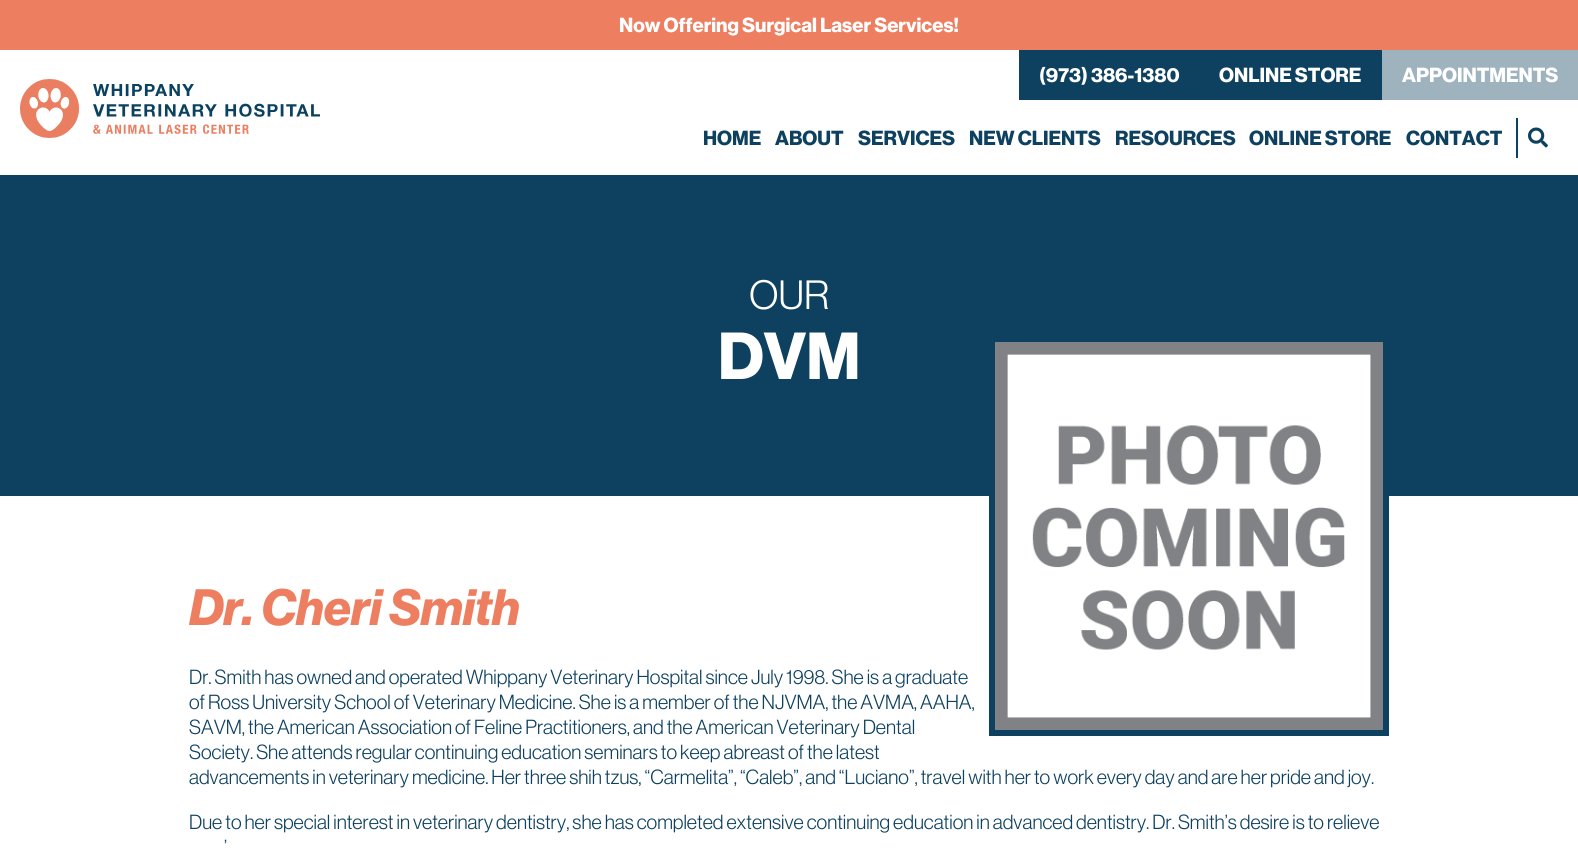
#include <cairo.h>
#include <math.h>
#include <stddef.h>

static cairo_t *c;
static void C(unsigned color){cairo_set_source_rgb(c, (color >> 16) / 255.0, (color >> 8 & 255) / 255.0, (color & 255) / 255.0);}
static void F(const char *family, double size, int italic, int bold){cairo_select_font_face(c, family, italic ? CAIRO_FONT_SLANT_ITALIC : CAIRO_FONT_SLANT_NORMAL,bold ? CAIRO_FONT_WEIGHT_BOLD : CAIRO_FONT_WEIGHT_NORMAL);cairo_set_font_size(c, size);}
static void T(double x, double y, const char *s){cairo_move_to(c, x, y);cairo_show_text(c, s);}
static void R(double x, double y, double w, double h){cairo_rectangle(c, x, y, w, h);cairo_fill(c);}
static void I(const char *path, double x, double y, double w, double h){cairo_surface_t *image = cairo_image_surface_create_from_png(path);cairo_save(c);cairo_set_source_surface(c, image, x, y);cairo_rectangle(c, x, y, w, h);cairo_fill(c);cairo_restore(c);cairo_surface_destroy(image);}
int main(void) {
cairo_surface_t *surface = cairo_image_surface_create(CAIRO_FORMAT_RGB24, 1578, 850);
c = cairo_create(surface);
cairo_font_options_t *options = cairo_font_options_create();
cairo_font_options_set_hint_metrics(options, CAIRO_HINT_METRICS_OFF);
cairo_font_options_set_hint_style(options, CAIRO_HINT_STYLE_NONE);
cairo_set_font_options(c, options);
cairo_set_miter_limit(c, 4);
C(0xffffff);
cairo_paint(c);
C(0xed7e60);
R(0,0,1578,50);
F("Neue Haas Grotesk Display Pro",20,0,1);
C(0xffffff);
T(619,32,"Now Offering Surgical Laser Services!");
I("1.png",20,79,300,59);
C(0x0e4160);
R(1019,50,363,50);
C(0xffffff);
T(1039,82,"(973) 386-1380");
T(1219,82,"ONLINE STORE");
C(0x9fb3bf);
R(1382,50,196,50);
C(0xffffff);
T(1402,82,"APPOINTMENTS");
C(0x0e4160);
T(703,145,"HOME");
T(775,145,"ABOUT");
T(858,145,"SERVICES");
T(969,145,"NEW CLIENTS");
T(1115,145,"RESOURCES");
T(1249,145,"ONLINE STORE");
T(1406,145,"CONTACT");
R(1516,118,2,40);
I("2.png",1528,127,20,21);
R(0,175,1578,321);
F("Neue Haas Grotesk Display Pro",40,0,0);
C(0xffffff);
T(749,309,"OUR");
F("Neue Haas Grotesk Display Pro",65,0,1);
T(718,379,"DVM");
F("Neue Haas Grotesk Display Pro",50,1,1);
C(0xed7e60);
T(189,625,"Dr. Cheri Smith");
cairo_rectangle(c,992,339,394,394);
C(0x0e4160);
cairo_set_line_width(c,6);
cairo_stroke(c);
I("3.png",995,342,388,388);
F("Neue Haas Grotesk Display Pro",20,0,0);
T(189,684,"Dr. Smith has owned and operated Whippany Veterinary Hospital since July 1998. She is a graduate");
T(189,709,"of Ross University School of Veterinary Medicine. She is a member of the NJVMA, the AVMA, AAHA,");
T(189,734,"SAVM, the American Association of Feline Practitioners, and the American Veterinary Dental");
T(189,759,"Society. She attends regular continuing education seminars to keep abreast of the latest");
T(189,784,"advancements in veterinary medicine. Her three shih tzus, “Carmelita”, “Caleb”, and “Luciano”, travel with her to work every day and are her pride and joy.");
T(189,829,"Due to her special interest in veterinary dentistry, she has completed extensive continuing education in advanced dentistry. Dr. Smith’s desire is to relieve");
T(224,854,"’");
cairo_surface_write_to_png(surface, "o.png");
cairo_font_options_destroy(options);
cairo_destroy(c);
cairo_surface_destroy(surface);
return 0;
}
